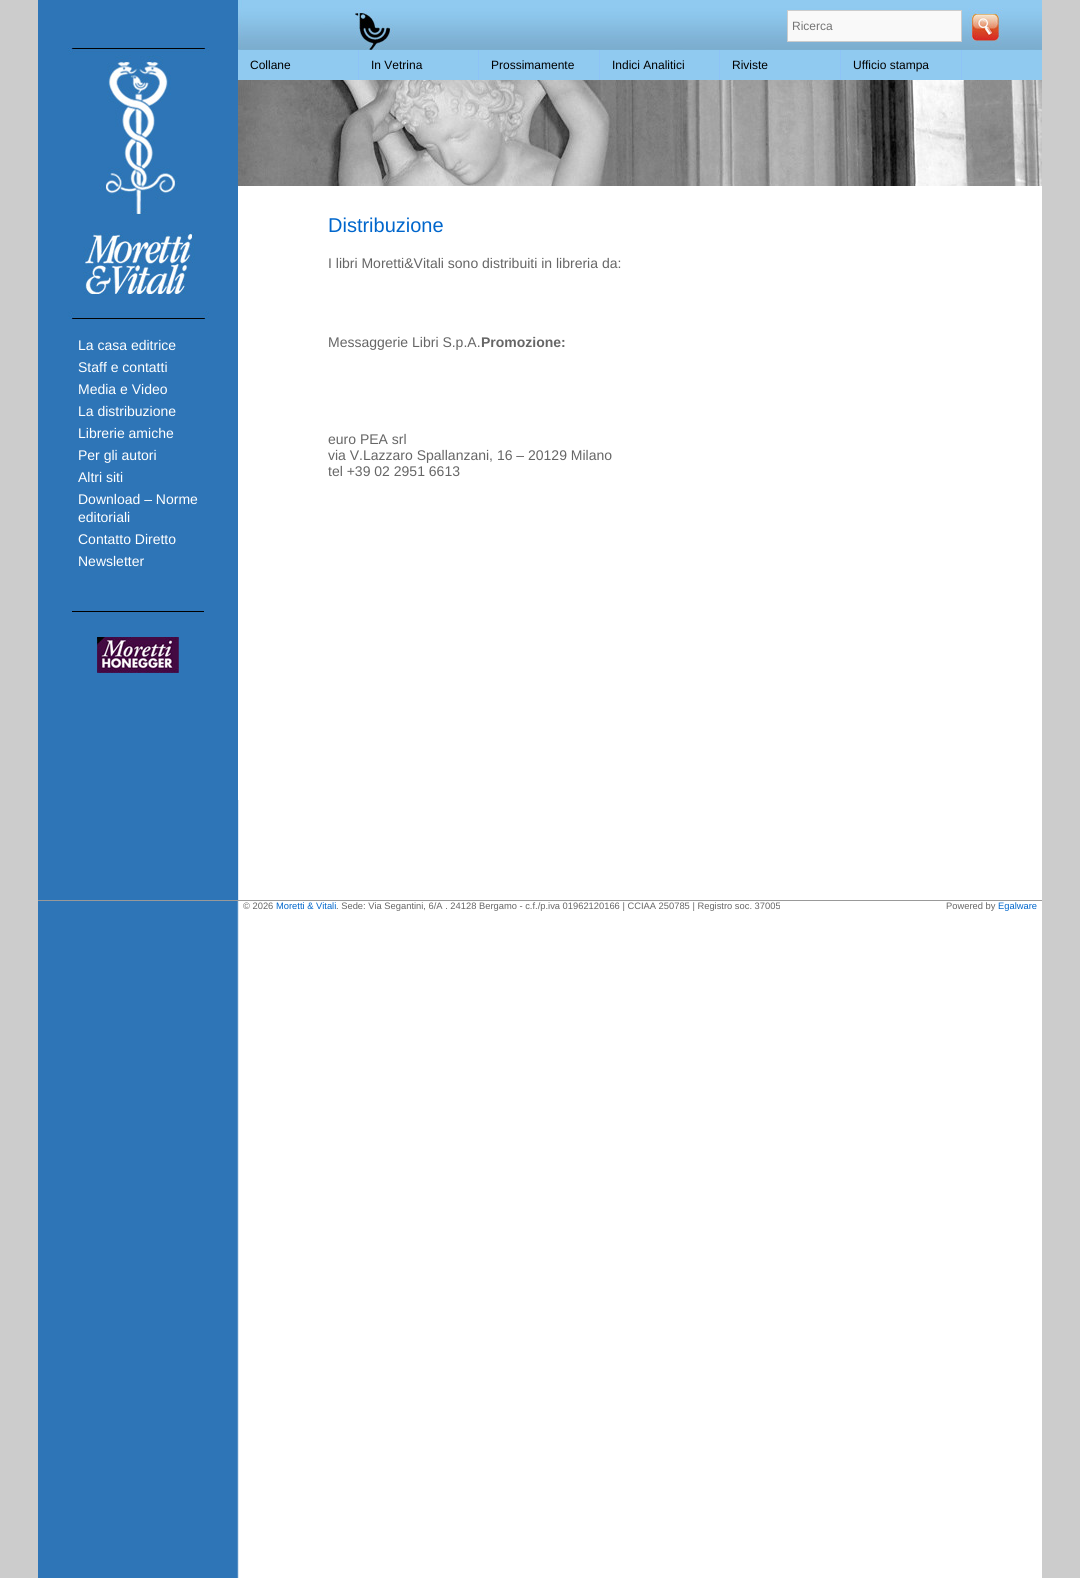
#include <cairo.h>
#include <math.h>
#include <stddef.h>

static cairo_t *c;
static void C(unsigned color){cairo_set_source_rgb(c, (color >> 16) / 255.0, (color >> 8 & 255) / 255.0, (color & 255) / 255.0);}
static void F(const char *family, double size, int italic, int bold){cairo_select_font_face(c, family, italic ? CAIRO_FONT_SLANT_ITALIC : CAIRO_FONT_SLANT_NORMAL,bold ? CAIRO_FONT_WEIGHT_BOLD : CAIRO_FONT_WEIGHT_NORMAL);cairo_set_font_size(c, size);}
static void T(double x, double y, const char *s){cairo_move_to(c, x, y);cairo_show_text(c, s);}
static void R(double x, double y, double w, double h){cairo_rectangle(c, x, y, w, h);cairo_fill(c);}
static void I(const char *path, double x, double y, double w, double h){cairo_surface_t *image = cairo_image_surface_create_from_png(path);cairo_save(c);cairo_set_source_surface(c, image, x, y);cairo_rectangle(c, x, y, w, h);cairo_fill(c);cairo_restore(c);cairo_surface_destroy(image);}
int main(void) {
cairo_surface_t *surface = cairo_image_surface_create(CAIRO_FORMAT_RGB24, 1080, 1578);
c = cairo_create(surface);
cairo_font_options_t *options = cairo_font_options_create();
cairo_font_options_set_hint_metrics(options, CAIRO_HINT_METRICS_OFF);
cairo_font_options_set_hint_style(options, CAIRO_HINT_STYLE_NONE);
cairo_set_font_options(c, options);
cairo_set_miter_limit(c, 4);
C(0xcccccc);
cairo_paint(c);
C(0xffffff);
R(239,800,803,778);
I("1.png",38,800,201,778);
C(0x2e75b7);
R(38,0,200,900);
I("2.png",68,47,141,272);
F("Liberation Sans",14,0,0);
C(0xffffff);
T(78,350,"La casa editrice");
T(78,372,"Staff e contatti");
T(78,394,"Media e Video");
T(78,416,"La distribuzione");
T(78,438,"Librerie amiche");
T(78,460,"Per gli autori");
T(78,482,"Altri siti");
T(78,504,"Download – Norme");
T(78,522,"editoriali");
T(78,544,"Contatto Diretto");
T(78,566,"Newsletter");
C(0x000000);
R(72,611,132,1);
I("3.png",97,637,82,36);
C(0xffffff);
R(238,186,804,614);
I("4.png",238,0,804,50);
C(0xf9f9f9);
cairo_rectangle(c,787.5,10.5,174,31);
cairo_fill_preserve(c);
C(0xcccccc);
cairo_set_line_width(c,1);
cairo_stroke(c);
F("Liberation Sans",12,0,0);
C(0x757575);
T(792,30,"Ricerca");
C(0x90caf0);
R(238,50,804,30);
C(0x8ec3f7);
R(358,50,1,30);
C(0x000000);
T(250,69,"Collane");
C(0x8ec3f7);
R(478,50,1,30);
C(0x000000);
T(371,69,"In Vetrina");
C(0x8ec3f7);
R(599,50,1,30);
C(0x000000);
T(491,69,"Prossimamente");
C(0x8ec3f7);
R(719,50,1,30);
C(0x000000);
T(612,69,"Indici Analitici");
C(0x8ec3f7);
R(840,50,1,30);
C(0x000000);
T(732,69,"Riviste");
C(0x8ec3f7);
R(961,50,1,30);
C(0x000000);
T(853,69,"Ufficio stampa");
I("5.png",238,80,804,106);
F("Liberation Sans",20,0,0);
C(0x0066cc);
T(328,232,"Distribuzione");
F("Liberation Sans",14,0,0);
C(0x666666);
T(328,268,"I libri Moretti&Vitali sono distribuiti in libreria da:");
T(328,347,"Messaggerie Libri S.p.A.");
F("Liberation Sans",14,0,1);
T(481,347,"Promozione:");
F("Liberation Sans",14,0,0);
T(328,444,"euro PEA srl");
T(328,460,"via V.Lazzaro Spallanzani, 16 – 20129 Milano");
T(328,476,"tel +39 02 2951 6613");
C(0x999999);
R(38,900,1004,1);
F("Liberation Sans",9.35,0,0);
C(0x666666);
T(243,909,"© 2026");
C(0x0066cc);
T(276,909,"Moretti & Vitali");
C(0x666666);
T(336,909,". Sede: Via Segantini, 6/A . 24128 Bergamo - c.f./p.iva 01962120166 | CCIAA 250785 | Registro soc. 37005");
T(946,909,"Powered by");
C(0x0066cc);
T(998,909,"Egalware");
cairo_surface_write_to_png(surface, "o.png");
cairo_font_options_destroy(options);
cairo_destroy(c);
cairo_surface_destroy(surface);
return 0;
}
